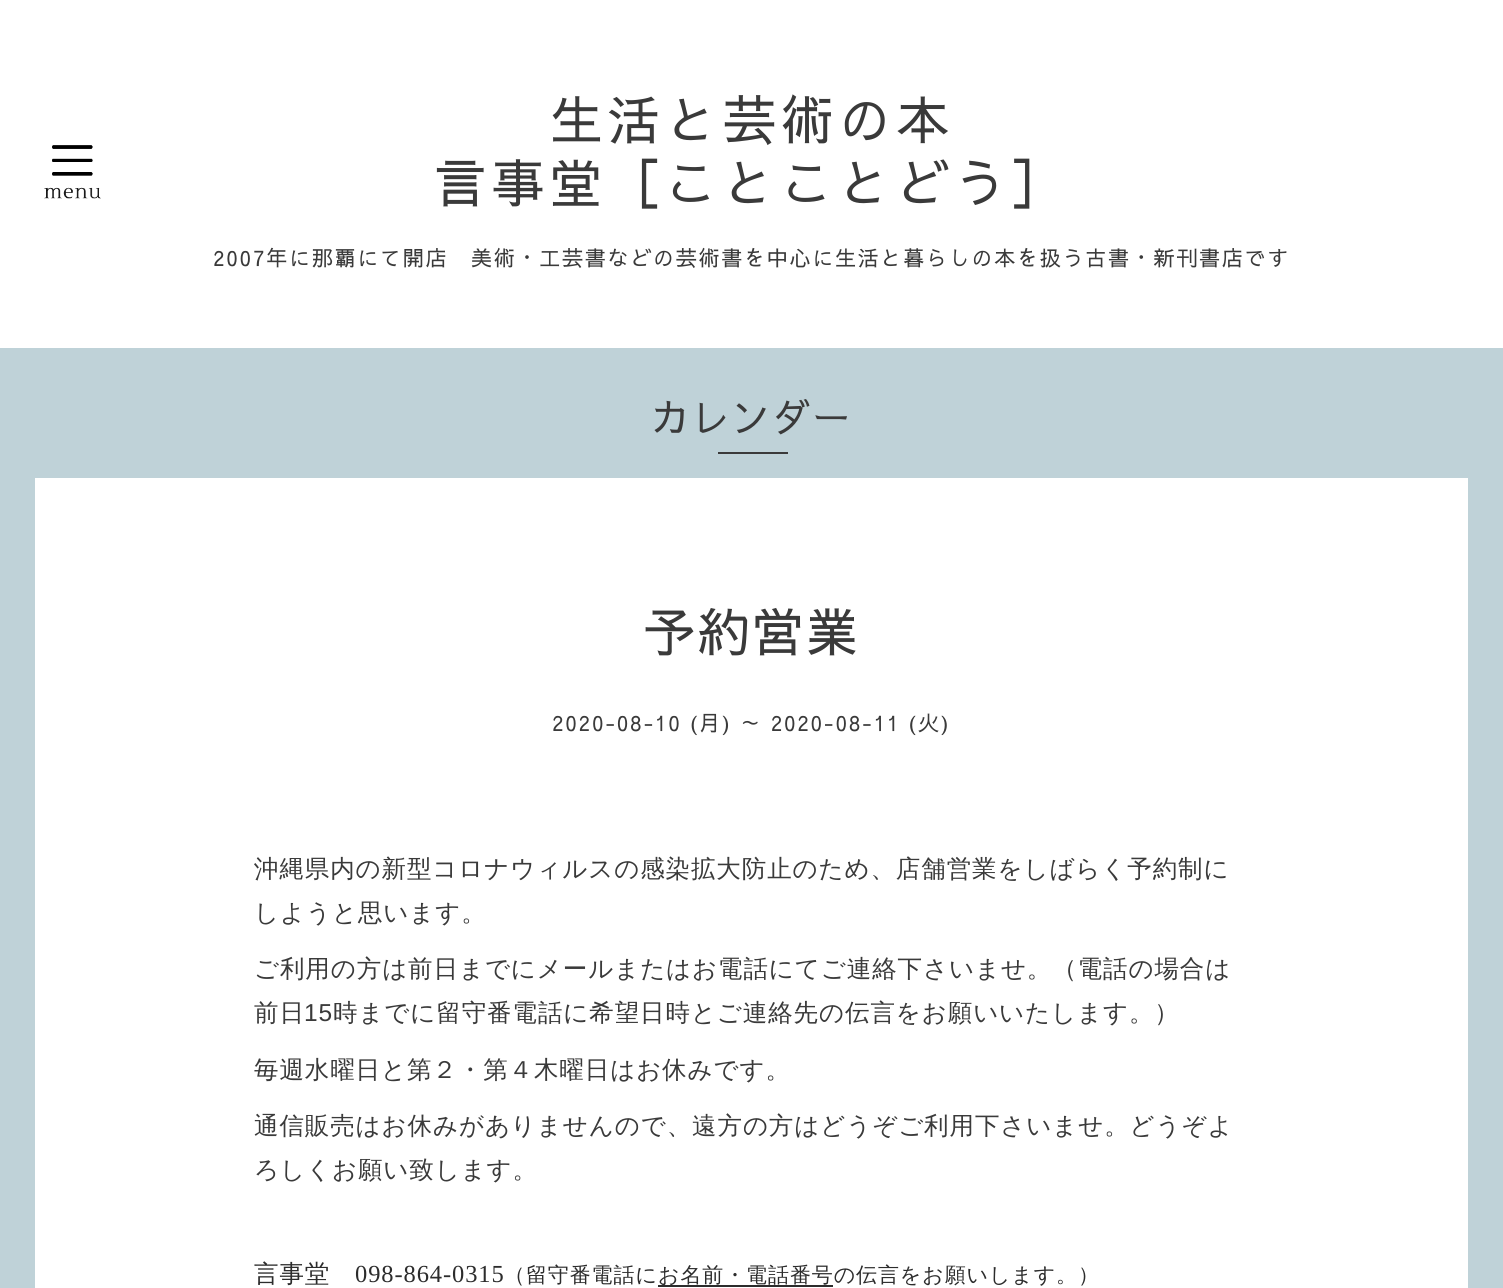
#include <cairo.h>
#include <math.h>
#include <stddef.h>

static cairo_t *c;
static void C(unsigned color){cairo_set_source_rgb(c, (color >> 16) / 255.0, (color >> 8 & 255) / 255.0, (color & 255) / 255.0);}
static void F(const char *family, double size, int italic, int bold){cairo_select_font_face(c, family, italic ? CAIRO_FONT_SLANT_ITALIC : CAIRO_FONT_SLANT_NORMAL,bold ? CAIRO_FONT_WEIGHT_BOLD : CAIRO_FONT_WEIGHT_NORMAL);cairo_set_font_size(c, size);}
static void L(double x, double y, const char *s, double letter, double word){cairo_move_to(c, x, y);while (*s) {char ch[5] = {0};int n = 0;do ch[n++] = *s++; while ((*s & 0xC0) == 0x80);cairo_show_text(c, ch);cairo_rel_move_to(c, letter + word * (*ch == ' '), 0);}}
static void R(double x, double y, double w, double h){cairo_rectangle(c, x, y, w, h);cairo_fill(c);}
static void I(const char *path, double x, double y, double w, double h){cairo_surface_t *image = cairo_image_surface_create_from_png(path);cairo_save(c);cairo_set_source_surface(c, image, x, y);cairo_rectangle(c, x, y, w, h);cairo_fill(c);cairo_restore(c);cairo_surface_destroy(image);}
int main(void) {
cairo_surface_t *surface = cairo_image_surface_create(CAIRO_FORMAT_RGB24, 1503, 1288);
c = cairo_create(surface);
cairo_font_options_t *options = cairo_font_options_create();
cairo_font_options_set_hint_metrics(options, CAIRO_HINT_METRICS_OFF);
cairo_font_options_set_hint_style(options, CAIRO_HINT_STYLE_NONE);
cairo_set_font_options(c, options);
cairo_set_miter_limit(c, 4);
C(0xffffff);
cairo_paint(c);
I("1.png",44,145,57,54);
F("Sawarabi Gothic",52.5,0,0);
C(0x3a3a3a);
L(550,140,"生活と芸術の本",5.25,0);
L(434,203,"言事堂［ことことどう］",5.25,0);
F("Sawarabi Gothic",21,0,0);
L(213,266,"2007年に那覇にて開店　美術・工芸書などの芸術書を中心に生活と暮らしの本を扱う古書・新刊書店です",1.75,0);
C(0xbfd2d8);
R(0,348,1503,940);
F("Sawarabi Gothic",38.5,0,0);
C(0x3a3a3a);
L(651,432,"カレンダー",1.75,0);
R(718,452,70,2);
C(0xffffff);
R(35,478,1433,810);
F("Sawarabi Gothic",52.5,0,0);
C(0x3a3a3a);
L(643,652,"予約営業",1.75,0);
F("Sawarabi Gothic",21,0,0);
L(552,731,"2020-08-10 (月) ～ 2020-08-11 (火)",1.75,0);
F("WenQuanYi Zen Hei Medium",24.5,0,0);
L(254,877,"沖縄県内の新型コロナウィルスの感染拡大防止のため、店舗営業をしばらく予約制に",.9,0);
L(254,921,"しようと思います。",.9,0);
L(254,977,"ご利用の方は前日までにメールまたはお電話にてご連絡下さいませ。（電話の場合は",.9,0);
L(254,1021,"前日",.9,0);
F("Liberation Sans",24.5,0,0);
L(304,1021,"15",.9,0);
F("WenQuanYi Zen Hei Medium",24.5,0,0);
L(333,1021,"時までに留守番電話に希望日時とご連絡先の伝言をお願いいたします。）",.9,0);
L(254,1078,"毎週水曜日と第２・第４木曜日はお休みです。",.9,0);
L(254,1134,"通信販売はお休みがありませんので、遠方の方はどうぞご利用下さいませ。どうぞよ",.9,0);
L(254,1178,"ろしくお願い致します。",.9,0);
C(0x2c2c2c);
L(254,1282,"言事堂",.9,0);
F("Liberation Serif",24.5,0,0);
L(355,1282,"098-864-0315",.9,0);
F("WenQuanYi Zen Hei Medium",21,0,0);
L(504,1282,"（留守番電話に",.9,0);
R(658,1285,175,2);
L(658,1282,"お名前・電話番号の伝言をお願いします。）",.9,0);
cairo_surface_write_to_png(surface, "o.png");
cairo_font_options_destroy(options);
cairo_destroy(c);
cairo_surface_destroy(surface);
return 0;
}
